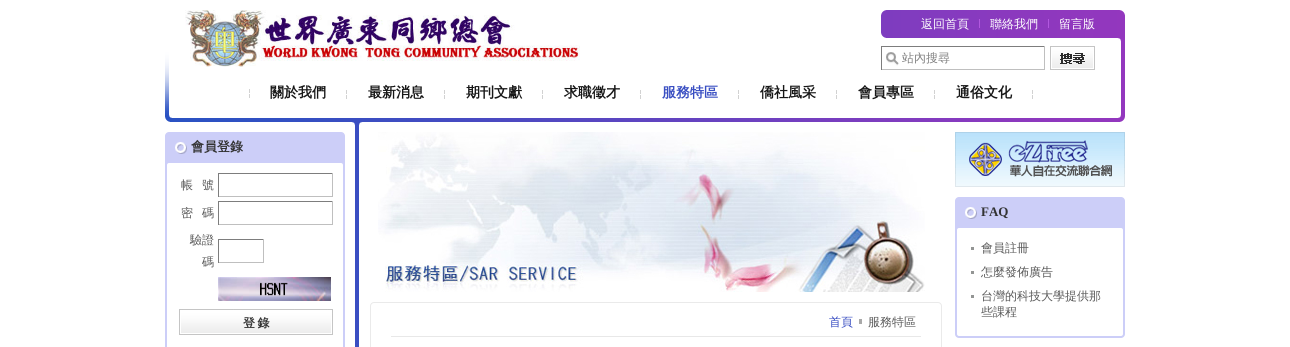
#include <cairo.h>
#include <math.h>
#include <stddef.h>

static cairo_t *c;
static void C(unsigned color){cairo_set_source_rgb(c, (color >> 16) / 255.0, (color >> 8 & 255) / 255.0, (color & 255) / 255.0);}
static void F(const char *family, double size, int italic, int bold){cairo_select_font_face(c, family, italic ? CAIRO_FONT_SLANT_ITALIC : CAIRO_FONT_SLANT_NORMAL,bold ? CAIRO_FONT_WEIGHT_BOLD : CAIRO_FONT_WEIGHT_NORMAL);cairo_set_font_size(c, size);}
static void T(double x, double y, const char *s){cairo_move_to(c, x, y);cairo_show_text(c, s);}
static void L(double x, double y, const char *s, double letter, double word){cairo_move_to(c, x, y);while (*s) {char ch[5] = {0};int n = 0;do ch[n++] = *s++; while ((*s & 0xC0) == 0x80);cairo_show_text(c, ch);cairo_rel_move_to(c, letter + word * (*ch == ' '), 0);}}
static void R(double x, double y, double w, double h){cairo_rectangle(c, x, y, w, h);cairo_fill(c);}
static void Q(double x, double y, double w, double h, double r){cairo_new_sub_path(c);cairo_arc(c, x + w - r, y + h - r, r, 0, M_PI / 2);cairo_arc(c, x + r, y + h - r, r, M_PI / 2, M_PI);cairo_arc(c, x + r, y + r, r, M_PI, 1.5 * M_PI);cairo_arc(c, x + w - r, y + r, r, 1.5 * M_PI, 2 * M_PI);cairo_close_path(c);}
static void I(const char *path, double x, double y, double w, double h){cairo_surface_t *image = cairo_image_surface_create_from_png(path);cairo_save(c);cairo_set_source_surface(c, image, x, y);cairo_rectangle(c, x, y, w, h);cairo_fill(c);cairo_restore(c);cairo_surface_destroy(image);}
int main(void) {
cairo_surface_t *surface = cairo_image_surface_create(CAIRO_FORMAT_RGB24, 1290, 347);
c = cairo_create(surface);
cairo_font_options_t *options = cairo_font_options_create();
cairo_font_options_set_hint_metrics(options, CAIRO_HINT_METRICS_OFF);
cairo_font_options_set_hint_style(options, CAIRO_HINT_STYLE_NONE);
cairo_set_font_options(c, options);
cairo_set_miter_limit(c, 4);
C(0xffffff);
cairo_paint(c);
I("1.png",165,10,960,116);
I("2.png",185,10,395,57);
F("WenQuanYi Zen Hei Medium",12,0,0);
C(0xffffff);
T(921,28,"返回首頁");
C(0xb258df);
R(979,19,1,9);
C(0xffffff);
T(990,28,"聯絡我們");
C(0xb258df);
R(1048,19,1,9);
C(0xffffff);
T(1059,28,"留言版");
I("3.png",886,52,13,14);
C(0x7d7d7d);
R(881,46,164,1);
C(0xbfbfbf);
R(1044,46,1,24);
R(881,69,164,1);
C(0x7d7d7d);
R(881,46,1,24);
C(0x808080);
T(902,62,"站內搜尋");
I("4.png",1050,46,45,24);
I("5.png",249,89,1,9);
I("5.png",346,90,1,9);
F("WenQuanYi Zen Hei",14,0,1);
C(0x171717);
T(270,97,"關於我們");
I("5.png",444,90,1,9);
T(368,97,"最新消息");
I("5.png",542,90,1,9);
T(466,97,"期刊文獻");
I("5.png",640,90,1,9);
T(564,97,"求職徵才");
I("5.png",738,90,1,9);
C(0x394ec2);
T(662,97,"服務特區");
I("5.png",836,90,1,9);
C(0x171717);
T(760,97,"僑社風采");
I("5.png",934,90,1,9);
T(858,97,"會員專區");
I("5.png",1032,90,1,9);
T(956,97,"通俗文化");
C(0x3a4ec2);
R(355,126,4,221);
C(0xcccef8);
Q(165,132,180,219,4);
cairo_fill(c);
I("6.png",175,142,12,12);
F("WenQuanYi Zen Hei",13,0,1);
C(0x333333);
T(191,151,"會員登錄");
C(0xffffff);
Q(167,163,176,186,2);
cairo_fill(c);
F("WenQuanYi Zen Hei Medium",12,0,0);
C(0x595959);
T(181,189,"帳");
T(202,189,"號");
C(0x7d7d7d);
R(218,173,115,1);
C(0xbfbfbf);
R(332,173,1,24);
R(218,196,115,1);
C(0x7d7d7d);
R(218,173,1,24);
C(0x595959);
T(181,217,"密");
T(202,217,"碼");
C(0x7d7d7d);
R(218,201,115,1);
C(0xbfbfbf);
R(332,201,1,24);
R(218,224,115,1);
C(0x7d7d7d);
R(218,201,1,24);
C(0x595959);
T(190,244,"驗證");
T(202,266,"碼");
C(0x7d7d7d);
R(218,239,46,1);
C(0xbfbfbf);
R(263,239,1,24);
R(218,262,46,1);
C(0x7d7d7d);
R(218,239,1,24);
I("7.png",218,277,113,24);
I("8.png",179,309,154,26);
F("WenQuanYi Zen Hei",12,0,1);
C(0x333333);
L(243,327,"登 錄",0,-1);
I("9.png",955,132,170,55);
C(0xcccef8);
Q(955,197,170,141,4);
cairo_fill(c);
I("6.png",965,207,12,12);
F("Liberation Serif",13,0,1);
C(0x333333);
T(981,216,"FAQ");
C(0xffffff);
Q(957,228,166,108,2);
cairo_fill(c);
C(0x939594);
R(971,247,3,3);
F("WenQuanYi Zen Hei Medium",12,0,0);
C(0x595959);
T(981,252,"會員註冊");
C(0x939594);
R(971,271,3,3);
C(0x595959);
T(981,276,"怎麼發佈廣告");
C(0x939594);
R(971,295,3,3);
C(0x595959);
T(981,300,"台灣的科技大學提供那");
T(981,316,"些課程");
I("10.png",378,132,547,160);
Q(370.5,302.5,571,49,3.5);
C(0xeaeaea);
cairo_set_line_width(c,1);
cairo_stroke(c);
C(0xe8e8e8);
R(391,336,530,1);
C(0x394ec2);
T(829,326,"首頁");
C(0xa9a9a9);
R(859,319,3,5);
C(0x595959);
T(868,326,"服務特區");
cairo_surface_write_to_png(surface, "o.png");
cairo_font_options_destroy(options);
cairo_destroy(c);
cairo_surface_destroy(surface);
return 0;
}
